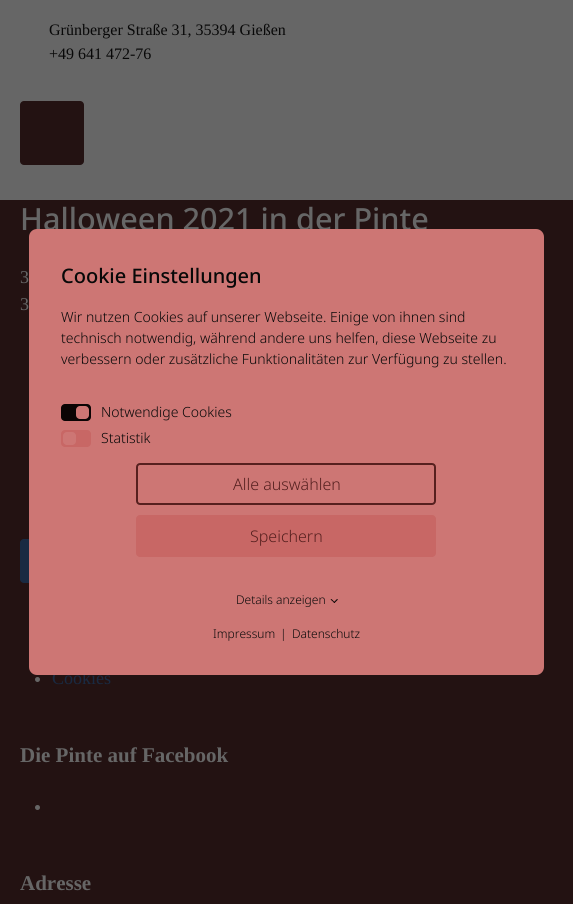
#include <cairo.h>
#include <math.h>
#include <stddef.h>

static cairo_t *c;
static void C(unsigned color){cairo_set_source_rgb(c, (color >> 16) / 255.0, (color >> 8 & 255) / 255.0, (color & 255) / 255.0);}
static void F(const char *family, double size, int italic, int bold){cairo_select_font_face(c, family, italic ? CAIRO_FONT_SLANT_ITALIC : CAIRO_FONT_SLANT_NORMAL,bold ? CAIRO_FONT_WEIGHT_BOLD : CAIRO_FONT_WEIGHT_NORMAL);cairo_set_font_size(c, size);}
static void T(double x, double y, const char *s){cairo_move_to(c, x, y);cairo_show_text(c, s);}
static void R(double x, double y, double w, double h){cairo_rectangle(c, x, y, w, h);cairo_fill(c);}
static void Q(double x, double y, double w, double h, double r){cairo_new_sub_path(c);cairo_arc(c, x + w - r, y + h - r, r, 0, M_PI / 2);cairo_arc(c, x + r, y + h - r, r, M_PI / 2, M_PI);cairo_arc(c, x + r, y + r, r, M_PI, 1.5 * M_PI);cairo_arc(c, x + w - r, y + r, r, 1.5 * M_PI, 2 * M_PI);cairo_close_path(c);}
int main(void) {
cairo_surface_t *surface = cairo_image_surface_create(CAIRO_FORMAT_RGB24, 573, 904);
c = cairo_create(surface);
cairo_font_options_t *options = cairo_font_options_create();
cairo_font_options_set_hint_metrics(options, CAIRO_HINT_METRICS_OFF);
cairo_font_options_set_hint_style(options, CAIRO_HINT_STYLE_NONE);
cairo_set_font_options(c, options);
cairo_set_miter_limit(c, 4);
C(0x231212);
cairo_paint(c);
C(0x666666);
R(0,0,573,200);
F("Liberation Serif",16,0,0);
C(0x080808);
T(49,35,"Grünberger Straße 31, 35394 Gießen");
T(49,59,"+49 641 472-76");
C(0x231212);
Q(20,101,64,64,4);
cairo_fill(c);
F("Noto Sans Medium",30.6,0,0);
C(0x666666);
T(20,230,"Halloween 2021 in der Pinte");
F("Liberation Serif",18,0,0);
T(20,283,"3");
T(20,310,"3");
C(0x192a42);
Q(20.5,539.5,105,43,3.5);
cairo_fill_preserve(c);
cairo_set_line_width(c,1);
cairo_stroke(c);
C(0x666666);
cairo_arc(c,37.5,679.5,2.5,0,2 * M_PI);
cairo_fill(c);
C(0x192a42);
T(52,684,"Cookies");
F("Liberation Serif",21,0,1);
C(0x666666);
T(20,762,"Die Pinte auf Facebook");
cairo_new_path(c);
cairo_arc(c,37.5,807.5,2.5,0,2 * M_PI);
cairo_fill(c);
T(20,890,"Adresse");
C(0xcd7674);
Q(29,229,515,446,8);
cairo_fill(c);
F("Noto Sans Medium",20,0,0);
C(0x080808);
T(61,283,"Cookie Einstellungen");
F("Noto Sans Light",14,0,0);
T(61,322,"Wir nutzen Cookies auf unserer Webseite. Einige von ihnen sind");
T(61,343,"technisch notwendig, während andere uns helfen, diese Webseite zu");
T(61,364,"verbessern oder zusätzliche Funktionalitäten zur Verfügung zu stellen.");
C(0x0b0404);
Q(61,404,30,17,4);
cairo_fill(c);
C(0xcd7674);
Q(76,406,13,13,4);
cairo_fill(c);
C(0x080808);
T(101,417,"Notwendige Cookies");
C(0xc86765);
Q(61,430,30,17,4);
cairo_fill(c);
C(0xcd7674);
Q(63,432,13,13,4);
cairo_fill(c);
C(0x080808);
T(101,443,"Statistik");
Q(137,464,298,40,3);
C(0x56201f);
cairo_set_line_width(c,2);
cairo_stroke(c);
F("Noto Sans Light",16,0,0);
T(233,490,"Alle auswählen");
C(0xc86765);
Q(136,515,300,42,4);
cairo_fill(c);
C(0x56201f);
T(250,542,"Speichern");
F("Noto Sans Light",12,0,0);
C(0x080808);
T(236,604,"Details anzeigen");
C(0x0b0404);
cairo_new_path(c);
cairo_move_to(c,337,599);
cairo_line_to(c,338,599.5);
cairo_line_to(c,334.5,603);
cairo_line_to(c,333.5,602.5);
cairo_close_path(c);
cairo_fill(c);
cairo_new_path(c);
cairo_move_to(c,331.5,599);
cairo_line_to(c,335,602.5);
cairo_line_to(c,334.5,603);
cairo_line_to(c,330.5,599.5);
cairo_close_path(c);
cairo_fill(c);
C(0x080808);
T(213,638,"Impressum");
T(280,638,"|");
T(292,638,"Datenschutz");
cairo_surface_write_to_png(surface, "o.png");
cairo_font_options_destroy(options);
cairo_destroy(c);
cairo_surface_destroy(surface);
return 0;
}
